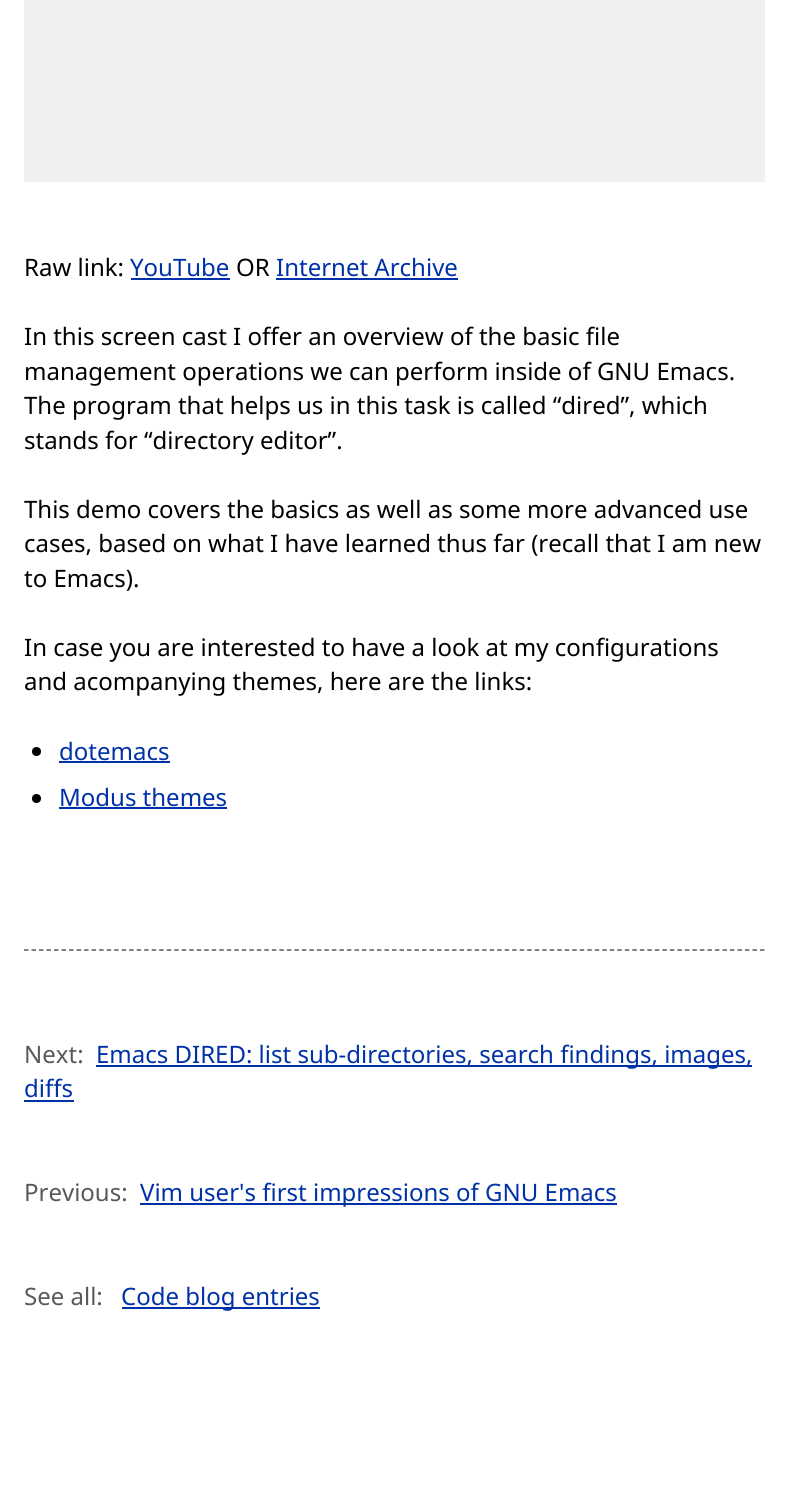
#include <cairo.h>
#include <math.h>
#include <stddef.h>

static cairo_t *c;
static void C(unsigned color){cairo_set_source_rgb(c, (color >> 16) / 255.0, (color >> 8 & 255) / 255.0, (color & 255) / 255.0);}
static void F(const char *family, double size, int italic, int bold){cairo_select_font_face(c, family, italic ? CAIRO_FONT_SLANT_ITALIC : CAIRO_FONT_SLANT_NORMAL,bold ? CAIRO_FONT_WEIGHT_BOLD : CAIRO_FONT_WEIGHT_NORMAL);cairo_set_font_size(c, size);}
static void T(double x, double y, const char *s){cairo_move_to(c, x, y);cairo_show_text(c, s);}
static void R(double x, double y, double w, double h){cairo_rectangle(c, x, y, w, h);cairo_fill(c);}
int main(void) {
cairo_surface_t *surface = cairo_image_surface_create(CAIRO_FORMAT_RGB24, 788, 1496);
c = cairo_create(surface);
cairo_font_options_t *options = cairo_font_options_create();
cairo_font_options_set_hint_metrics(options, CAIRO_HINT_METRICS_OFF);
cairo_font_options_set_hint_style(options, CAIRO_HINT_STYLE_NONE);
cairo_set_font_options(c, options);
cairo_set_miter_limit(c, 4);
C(0xffffff);
cairo_paint(c);
C(0xf0f0f0);
R(24,0,741,182);
F("Noto Sans",24,0,0);
C(0x000000);
T(24,276,"Raw link:");
C(0x0031a9);
T(130,276,"YouTube");
R(131,278,99,2);
C(0x000000);
T(236,276,"OR");
C(0x0031a9);
T(276,276,"Internet Archive");
R(276,278,182,2);
C(0x000000);
T(24,345,"In this screen cast I offer an overview of the basic file");
T(24,380,"management operations we can perform inside of GNU Emacs.");
T(24,414,"The program that helps us in this task is called “dired”, which");
T(24,449,"stands for “directory editor”.");
T(24,518,"This demo covers the basics as well as some more advanced use");
T(24,552,"cases, based on what I have learned thus far (recall that I am new");
T(24,587,"to Emacs).");
T(24,656,"In case you are interested to have a look at my configurations");
T(24,690,"and acompanying themes, here are the links:");
cairo_new_path(c);
cairo_arc(c,36.5,751.5,4.5,0,2 * M_PI);
cairo_fill(c);
C(0x0031a9);
T(59,760,"dotemacs");
R(59,761,111,2);
C(0x000000);
cairo_new_path(c);
cairo_arc(c,36.5,798.5,4.5,0,2 * M_PI);
cairo_fill(c);
C(0x0031a9);
T(59,806,"Modus themes");
R(59,807,168,2);
cairo_new_path(c);
cairo_move_to(c,24,950);
cairo_line_to(c,765,950);
C(0x595959);
cairo_set_line_width(c,1.5);
cairo_set_dash(c,(double[]){4.5,3.01},2,0);
cairo_stroke(c);
T(24,1063,"Next:");
C(0x0031a9);
R(96,1065,656,2);
T(96,1063,"Emacs DIRED: list sub-directories, search findings, images,");
T(24,1097,"diffs");
R(24,1100,50,2);
C(0x595959);
T(24,1201,"Previous:");
C(0x0031a9);
R(140,1203,477,2);
T(140,1201,"Vim user's first impressions of GNU Emacs");
C(0x595959);
T(24,1305,"See all:");
C(0x0031a9);
R(122,1307,198,2);
T(121,1305,"Code blog entries");
cairo_surface_write_to_png(surface, "o.png");
cairo_font_options_destroy(options);
cairo_destroy(c);
cairo_surface_destroy(surface);
return 0;
}
